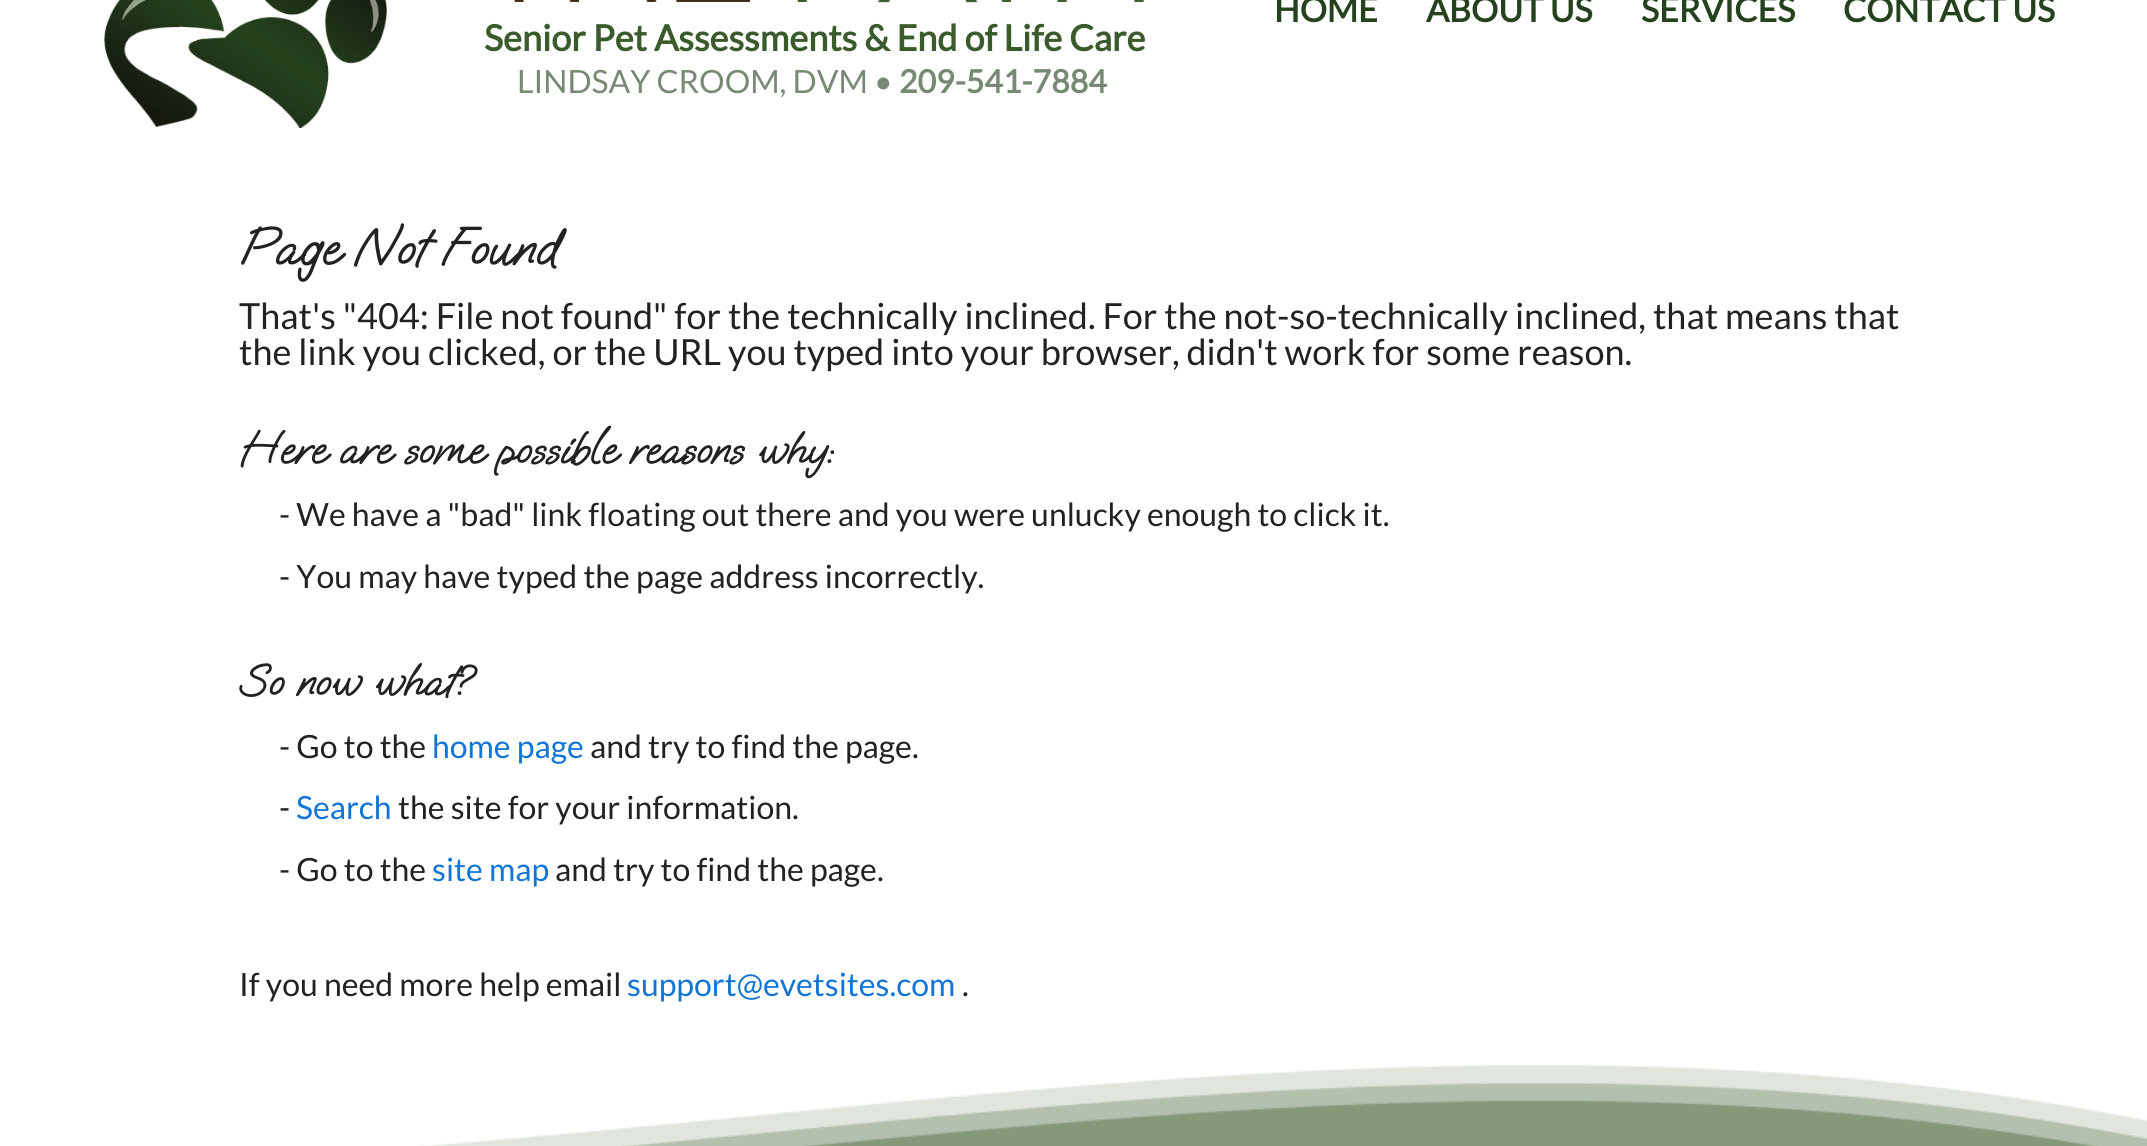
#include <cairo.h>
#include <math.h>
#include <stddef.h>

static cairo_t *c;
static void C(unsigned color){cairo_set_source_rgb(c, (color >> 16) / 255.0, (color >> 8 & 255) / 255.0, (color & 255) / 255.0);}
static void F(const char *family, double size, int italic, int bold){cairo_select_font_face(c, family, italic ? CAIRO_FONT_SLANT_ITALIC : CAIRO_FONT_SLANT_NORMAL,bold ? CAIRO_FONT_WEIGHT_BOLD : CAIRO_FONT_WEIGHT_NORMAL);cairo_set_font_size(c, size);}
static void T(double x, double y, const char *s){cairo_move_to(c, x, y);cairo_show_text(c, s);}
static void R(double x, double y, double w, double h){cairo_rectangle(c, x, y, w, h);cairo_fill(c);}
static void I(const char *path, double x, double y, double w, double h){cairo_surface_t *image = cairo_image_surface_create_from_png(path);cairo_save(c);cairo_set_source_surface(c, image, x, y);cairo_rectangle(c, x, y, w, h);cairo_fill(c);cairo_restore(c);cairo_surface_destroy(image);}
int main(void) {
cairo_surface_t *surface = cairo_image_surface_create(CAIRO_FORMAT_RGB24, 2147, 1146);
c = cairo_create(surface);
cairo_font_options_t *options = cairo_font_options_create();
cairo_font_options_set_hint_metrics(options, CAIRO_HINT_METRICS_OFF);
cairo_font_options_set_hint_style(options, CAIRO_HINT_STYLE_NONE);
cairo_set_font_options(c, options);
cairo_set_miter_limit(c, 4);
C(0xffffff);
cairo_paint(c);
F("Lato",34,0,1);
C(0x24421d);
T(1274,22,"HOME");
T(1426,22,"ABOUT US");
T(1641,22,"SERVICES");
T(1843,22,"CONTACT US");
I("1.png",104,0,283,128);
I("2.png",514,0,630,3);
F("Lato",36,0,1);
C(0x3a5b2b);
T(484,51,"Senior Pet Assessments & End of Life Care");
F("Lato",32,0,0);
C(0x768972);
T(517,93,"LINDSAY CROOM, DVM •");
F("Lato",32,0,1);
T(899,93,"209-541-7884");
F("Oooh Baby",54,0,1);
C(0x222222);
T(239,264,"Page Not Found");
F("Lato",36,0,0);
T(239,329,"That's \"404: File not found\" for the technically inclined. For the not-so-technically inclined, that means that");
T(239,365,"the link you clicked, or the URL you typed into your browser, didn't work for some reason.");
F("Oooh Baby",46,0,1);
T(239,463,"Here are some possible reasons why:");
F("Lato",32,0,0);
T(279,526,"- We have a \"bad\" link floating out there and you were unlucky enough to click it.");
T(279,588,"- You may have typed the page address incorrectly.");
F("Oooh Baby",46,0,1);
T(239,695,"So now what?");
F("Lato",32,0,0);
T(279,758,"- Go to the");
C(0x1175d6);
T(432,758,"home page");
C(0x222222);
T(590,758,"and try to find the page.");
T(279,819,"-");
C(0x1175d6);
T(296,819,"Search");
C(0x222222);
T(398,819,"the site for your information.");
T(279,881,"- Go to the");
C(0x1175d6);
T(432,881,"site map");
C(0x222222);
T(555,881,"and try to find the page.");
T(239,996,"If you need more help email");
C(0x1175d6);
T(627,996,"support@evetsites.com");
C(0x222222);
T(962,996,".");
C(0x84987a);
R(416,1064,1731,82);
I("3.png",0,1032,2147,114);
cairo_surface_write_to_png(surface, "o.png");
cairo_font_options_destroy(options);
cairo_destroy(c);
cairo_surface_destroy(surface);
return 0;
}
